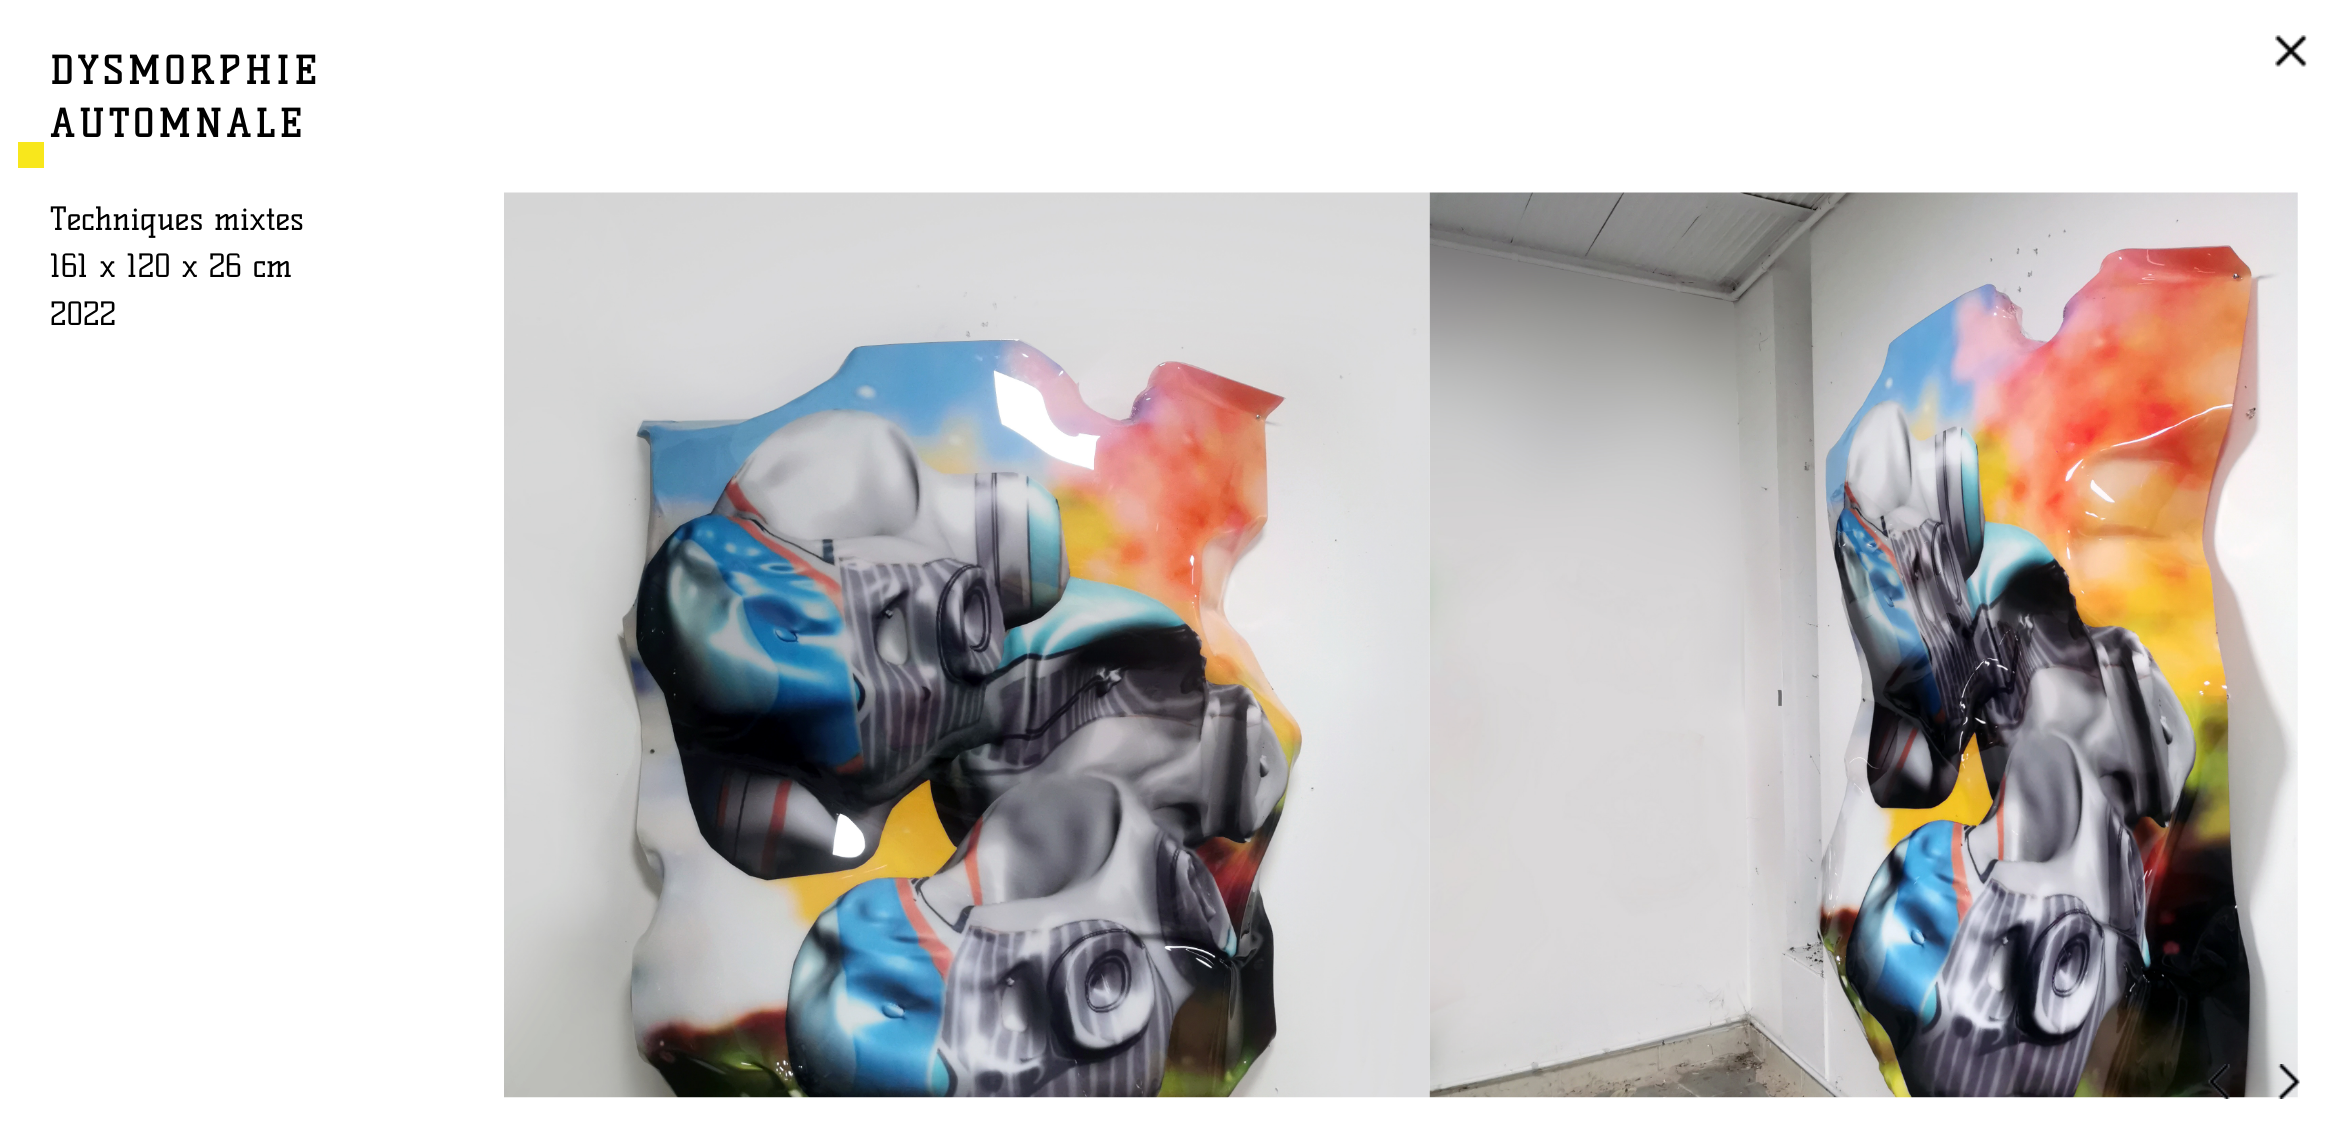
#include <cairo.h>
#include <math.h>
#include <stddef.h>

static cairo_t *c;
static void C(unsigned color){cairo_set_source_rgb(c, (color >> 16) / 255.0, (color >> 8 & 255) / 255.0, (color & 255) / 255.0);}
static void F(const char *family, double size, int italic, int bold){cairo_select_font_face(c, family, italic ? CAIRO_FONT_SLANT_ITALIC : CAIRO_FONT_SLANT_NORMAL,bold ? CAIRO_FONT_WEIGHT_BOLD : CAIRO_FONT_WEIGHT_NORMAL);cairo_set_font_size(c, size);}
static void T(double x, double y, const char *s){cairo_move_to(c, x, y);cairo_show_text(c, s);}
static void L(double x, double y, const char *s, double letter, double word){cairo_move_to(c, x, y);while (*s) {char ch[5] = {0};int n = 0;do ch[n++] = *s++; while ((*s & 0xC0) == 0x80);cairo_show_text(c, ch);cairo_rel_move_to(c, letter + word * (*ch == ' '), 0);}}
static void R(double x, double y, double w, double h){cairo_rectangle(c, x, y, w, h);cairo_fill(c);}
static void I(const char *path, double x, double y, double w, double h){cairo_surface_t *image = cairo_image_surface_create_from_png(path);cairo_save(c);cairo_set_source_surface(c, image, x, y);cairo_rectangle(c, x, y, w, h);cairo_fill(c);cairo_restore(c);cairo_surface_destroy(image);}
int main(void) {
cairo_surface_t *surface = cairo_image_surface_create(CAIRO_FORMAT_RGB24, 2341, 1140);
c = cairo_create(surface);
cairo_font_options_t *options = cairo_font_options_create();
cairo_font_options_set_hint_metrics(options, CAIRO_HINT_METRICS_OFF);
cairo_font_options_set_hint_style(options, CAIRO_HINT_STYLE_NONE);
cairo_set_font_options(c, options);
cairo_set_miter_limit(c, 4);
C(0xffffff);
cairo_paint(c);
F("Kelly Slab",37.75,0,1);
C(0x000000);
L(50,84,"DYSMORPHIE",4.4,0);
L(50,137,"AUTOMNALE",4.4,0);
C(0xf8e71c);
R(18,142,26,26);
F("Kelly Slab",31.5,0,0);
C(0x000000);
T(50,230,"Techniques mixtes");
T(50,277,"161 x 120 x 26 cm");
T(50,325,"2022");
I("1.png",2275,35,32,32);
I("4.png",504,192,926,906);
I("5.png",1429,192,869,906);
I("2.png",2208,1064,22,35);
I("3.png",2278,1064,22,35);
cairo_surface_write_to_png(surface, "o.png");
cairo_font_options_destroy(options);
cairo_destroy(c);
cairo_surface_destroy(surface);
return 0;
}
